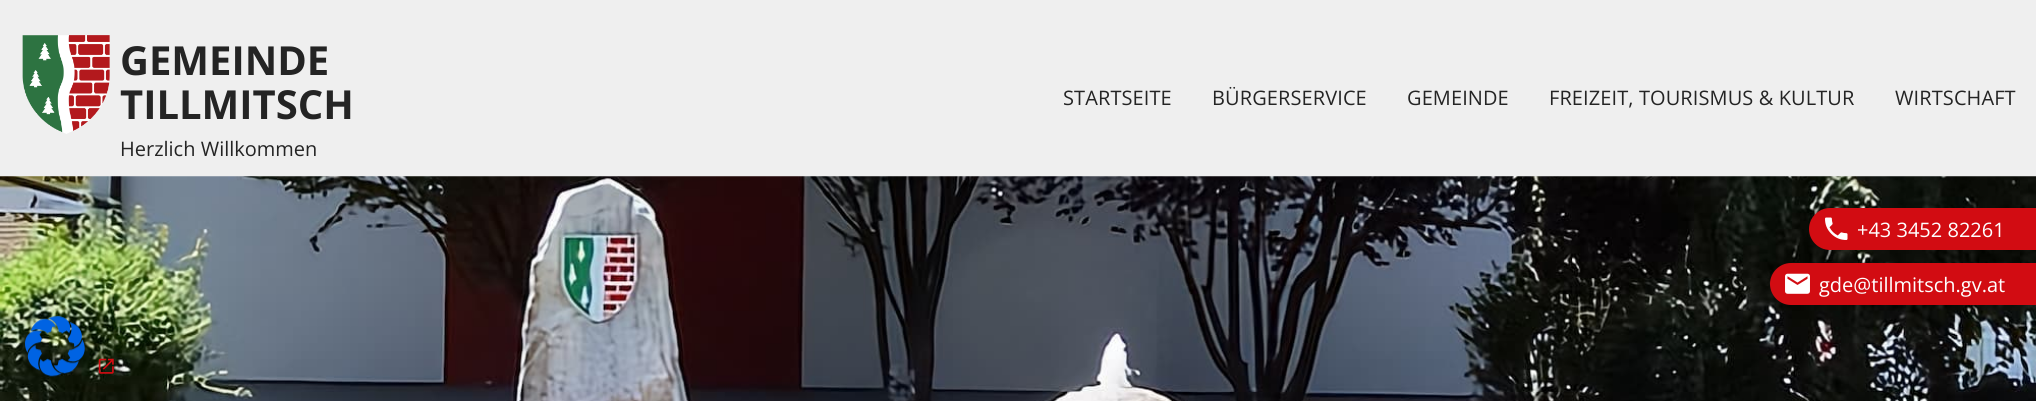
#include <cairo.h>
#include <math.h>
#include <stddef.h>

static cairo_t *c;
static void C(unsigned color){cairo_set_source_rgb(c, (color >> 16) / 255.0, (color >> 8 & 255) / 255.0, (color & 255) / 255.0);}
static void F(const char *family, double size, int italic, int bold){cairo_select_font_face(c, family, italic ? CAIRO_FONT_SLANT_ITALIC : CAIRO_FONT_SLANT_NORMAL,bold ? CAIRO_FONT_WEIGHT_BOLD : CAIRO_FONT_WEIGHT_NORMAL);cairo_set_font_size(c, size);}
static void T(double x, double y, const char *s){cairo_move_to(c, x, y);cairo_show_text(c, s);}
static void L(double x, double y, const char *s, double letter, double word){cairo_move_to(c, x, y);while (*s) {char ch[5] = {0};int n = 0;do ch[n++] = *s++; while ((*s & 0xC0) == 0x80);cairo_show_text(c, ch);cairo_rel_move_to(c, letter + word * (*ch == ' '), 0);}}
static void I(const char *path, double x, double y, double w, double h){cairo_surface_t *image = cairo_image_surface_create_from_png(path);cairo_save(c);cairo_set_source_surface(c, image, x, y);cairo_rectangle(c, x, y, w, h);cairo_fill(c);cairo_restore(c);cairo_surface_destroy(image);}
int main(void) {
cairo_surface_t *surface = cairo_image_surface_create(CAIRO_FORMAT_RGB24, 2036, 401);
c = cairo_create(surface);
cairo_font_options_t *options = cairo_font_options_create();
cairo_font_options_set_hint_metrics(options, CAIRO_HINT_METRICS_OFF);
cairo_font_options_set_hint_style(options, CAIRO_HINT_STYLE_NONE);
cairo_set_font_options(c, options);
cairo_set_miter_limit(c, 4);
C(0xefefef);
cairo_paint(c);
I("1.png",22,35,88,99);
F("Open Sans",40,0,1);
C(0x242424);
T(120,75,"GEMEINDE");
T(120,119,"TILLMITSCH");
F("Open Sans",20,0,0);
T(120,156,"Herzlich Willkommen");
L(1063,105,"STARTSEITE",.1,0);
L(1212,105,"BÜRGERSERVICE",.1,0);
L(1407,105,"GEMEINDE",.1,0);
L(1549,105,"FREIZEIT, TOURISMUS & KULTUR",.1,0);
L(1895,105,"WIRTSCHAFT",.1,0);
I("2.png",0,176,2036,225);
C(0xd20c12);
cairo_new_path(c);
cairo_move_to(c,1830,208);
cairo_line_to(c,2036,208);
cairo_line_to(c,2036,250);
cairo_line_to(c,1830,250);
cairo_curve_to(c,1818.5,250,1809,240.5,1809,229);
cairo_curve_to(c,1809,217.5,1818.5,208,1830,208);
cairo_close_path(c);
cairo_fill(c);
I("3.png",1825,217,23,23);
C(0xffffff);
T(1857,237,"+43 3452 82261");
C(0xd20c12);
cairo_new_path(c);
cairo_move_to(c,1791,263);
cairo_line_to(c,2036,263);
cairo_line_to(c,2036,305);
cairo_line_to(c,1791,305);
cairo_curve_to(c,1779.5,305,1770,295.5,1770,284);
cairo_curve_to(c,1770,272.5,1779.5,263,1791,263);
cairo_close_path(c);
cairo_fill(c);
I("4.png",1785,273,25,21);
C(0xffffff);
T(1819,292,"gde@tillmitsch.gv.at");
I("5.png",25,311,64,66);
I("6.png",98,358,16,16);
cairo_surface_write_to_png(surface, "o.png");
cairo_font_options_destroy(options);
cairo_destroy(c);
cairo_surface_destroy(surface);
return 0;
}
